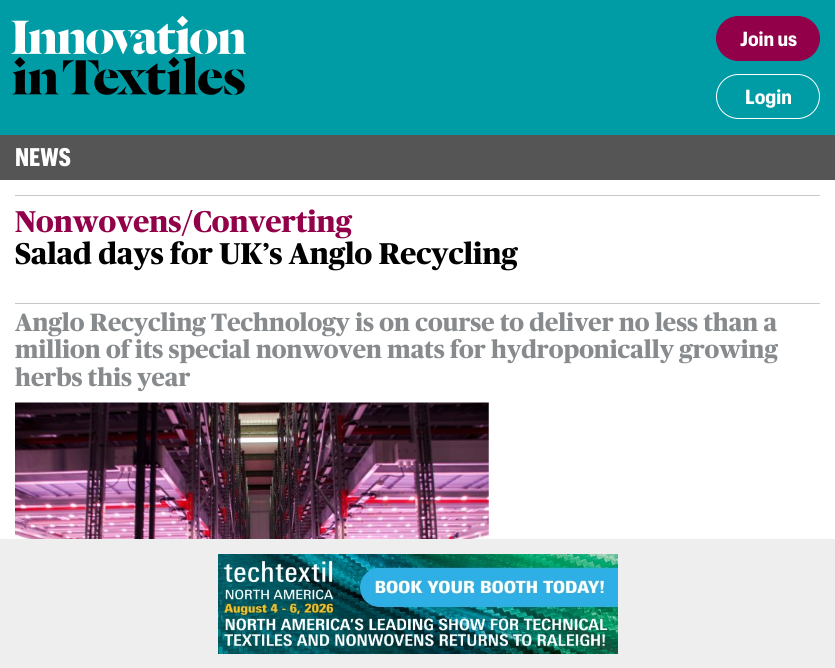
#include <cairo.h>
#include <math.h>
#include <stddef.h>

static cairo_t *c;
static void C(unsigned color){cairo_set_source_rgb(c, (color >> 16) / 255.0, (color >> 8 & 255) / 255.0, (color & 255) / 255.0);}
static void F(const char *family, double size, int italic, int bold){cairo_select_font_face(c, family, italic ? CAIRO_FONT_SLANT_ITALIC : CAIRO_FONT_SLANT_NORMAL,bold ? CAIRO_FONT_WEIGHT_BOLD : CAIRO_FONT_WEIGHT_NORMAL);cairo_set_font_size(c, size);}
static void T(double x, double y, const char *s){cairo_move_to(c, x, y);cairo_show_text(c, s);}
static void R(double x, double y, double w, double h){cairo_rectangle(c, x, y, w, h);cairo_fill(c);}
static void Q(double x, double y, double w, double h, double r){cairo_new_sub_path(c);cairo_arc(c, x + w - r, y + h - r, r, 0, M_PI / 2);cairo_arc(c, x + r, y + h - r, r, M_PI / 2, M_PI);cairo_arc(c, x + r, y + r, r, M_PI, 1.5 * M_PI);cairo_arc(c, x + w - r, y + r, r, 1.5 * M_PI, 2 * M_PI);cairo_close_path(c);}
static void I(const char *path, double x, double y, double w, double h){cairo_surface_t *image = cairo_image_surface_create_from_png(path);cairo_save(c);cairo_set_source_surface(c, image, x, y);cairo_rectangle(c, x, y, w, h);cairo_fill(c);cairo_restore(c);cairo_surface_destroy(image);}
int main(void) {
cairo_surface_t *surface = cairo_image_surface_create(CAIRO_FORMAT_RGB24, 835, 668);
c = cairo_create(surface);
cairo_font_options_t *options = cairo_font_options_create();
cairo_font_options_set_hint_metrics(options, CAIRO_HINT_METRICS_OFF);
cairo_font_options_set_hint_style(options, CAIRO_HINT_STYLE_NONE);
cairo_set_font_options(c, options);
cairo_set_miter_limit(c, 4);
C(0xffffff);
cairo_paint(c);
C(0x009ca6);
R(0,0,835,135);
I("1.png",11,15,235,80);
C(0x910048);
Q(716.5,16.5,103,44,22);
cairo_fill_preserve(c);
cairo_set_line_width(c,1);
cairo_stroke(c);
F("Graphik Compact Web",20,0,1);
C(0xffffff);
T(740,46,"Join us");
Q(716.5,74.5,103,44,22);
cairo_stroke(c);
T(745,104,"Login");
C(0xeeeeee);
R(0,539,835,129);
I("2.png",218,554,400,100);
C(0x555555);
R(0,135,835,45);
F("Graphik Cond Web",25,0,1);
C(0xffffff);
T(15,166,"NEWS");
C(0xc8c9c7);
R(15,195,805,1);
R(15,303,805,1);
F("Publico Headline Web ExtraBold",30,0,0);
C(0x910048);
T(15,232,"Nonwovens/Converting");
C(0x000000);
T(15,264,"Salad days for UK’s Anglo Recycling");
F("Publico Headline Web ExtraBold",25,0,0);
C(0x888b8d);
T(15,331,"Anglo Recycling Technology is on course to deliver no less than a");
T(15,358,"million of its special nonwoven mats for hydroponically growing");
T(15,386,"herbs this year");
I("3.png",15,402,474,137);
cairo_surface_write_to_png(surface, "o.png");
cairo_font_options_destroy(options);
cairo_destroy(c);
cairo_surface_destroy(surface);
return 0;
}
